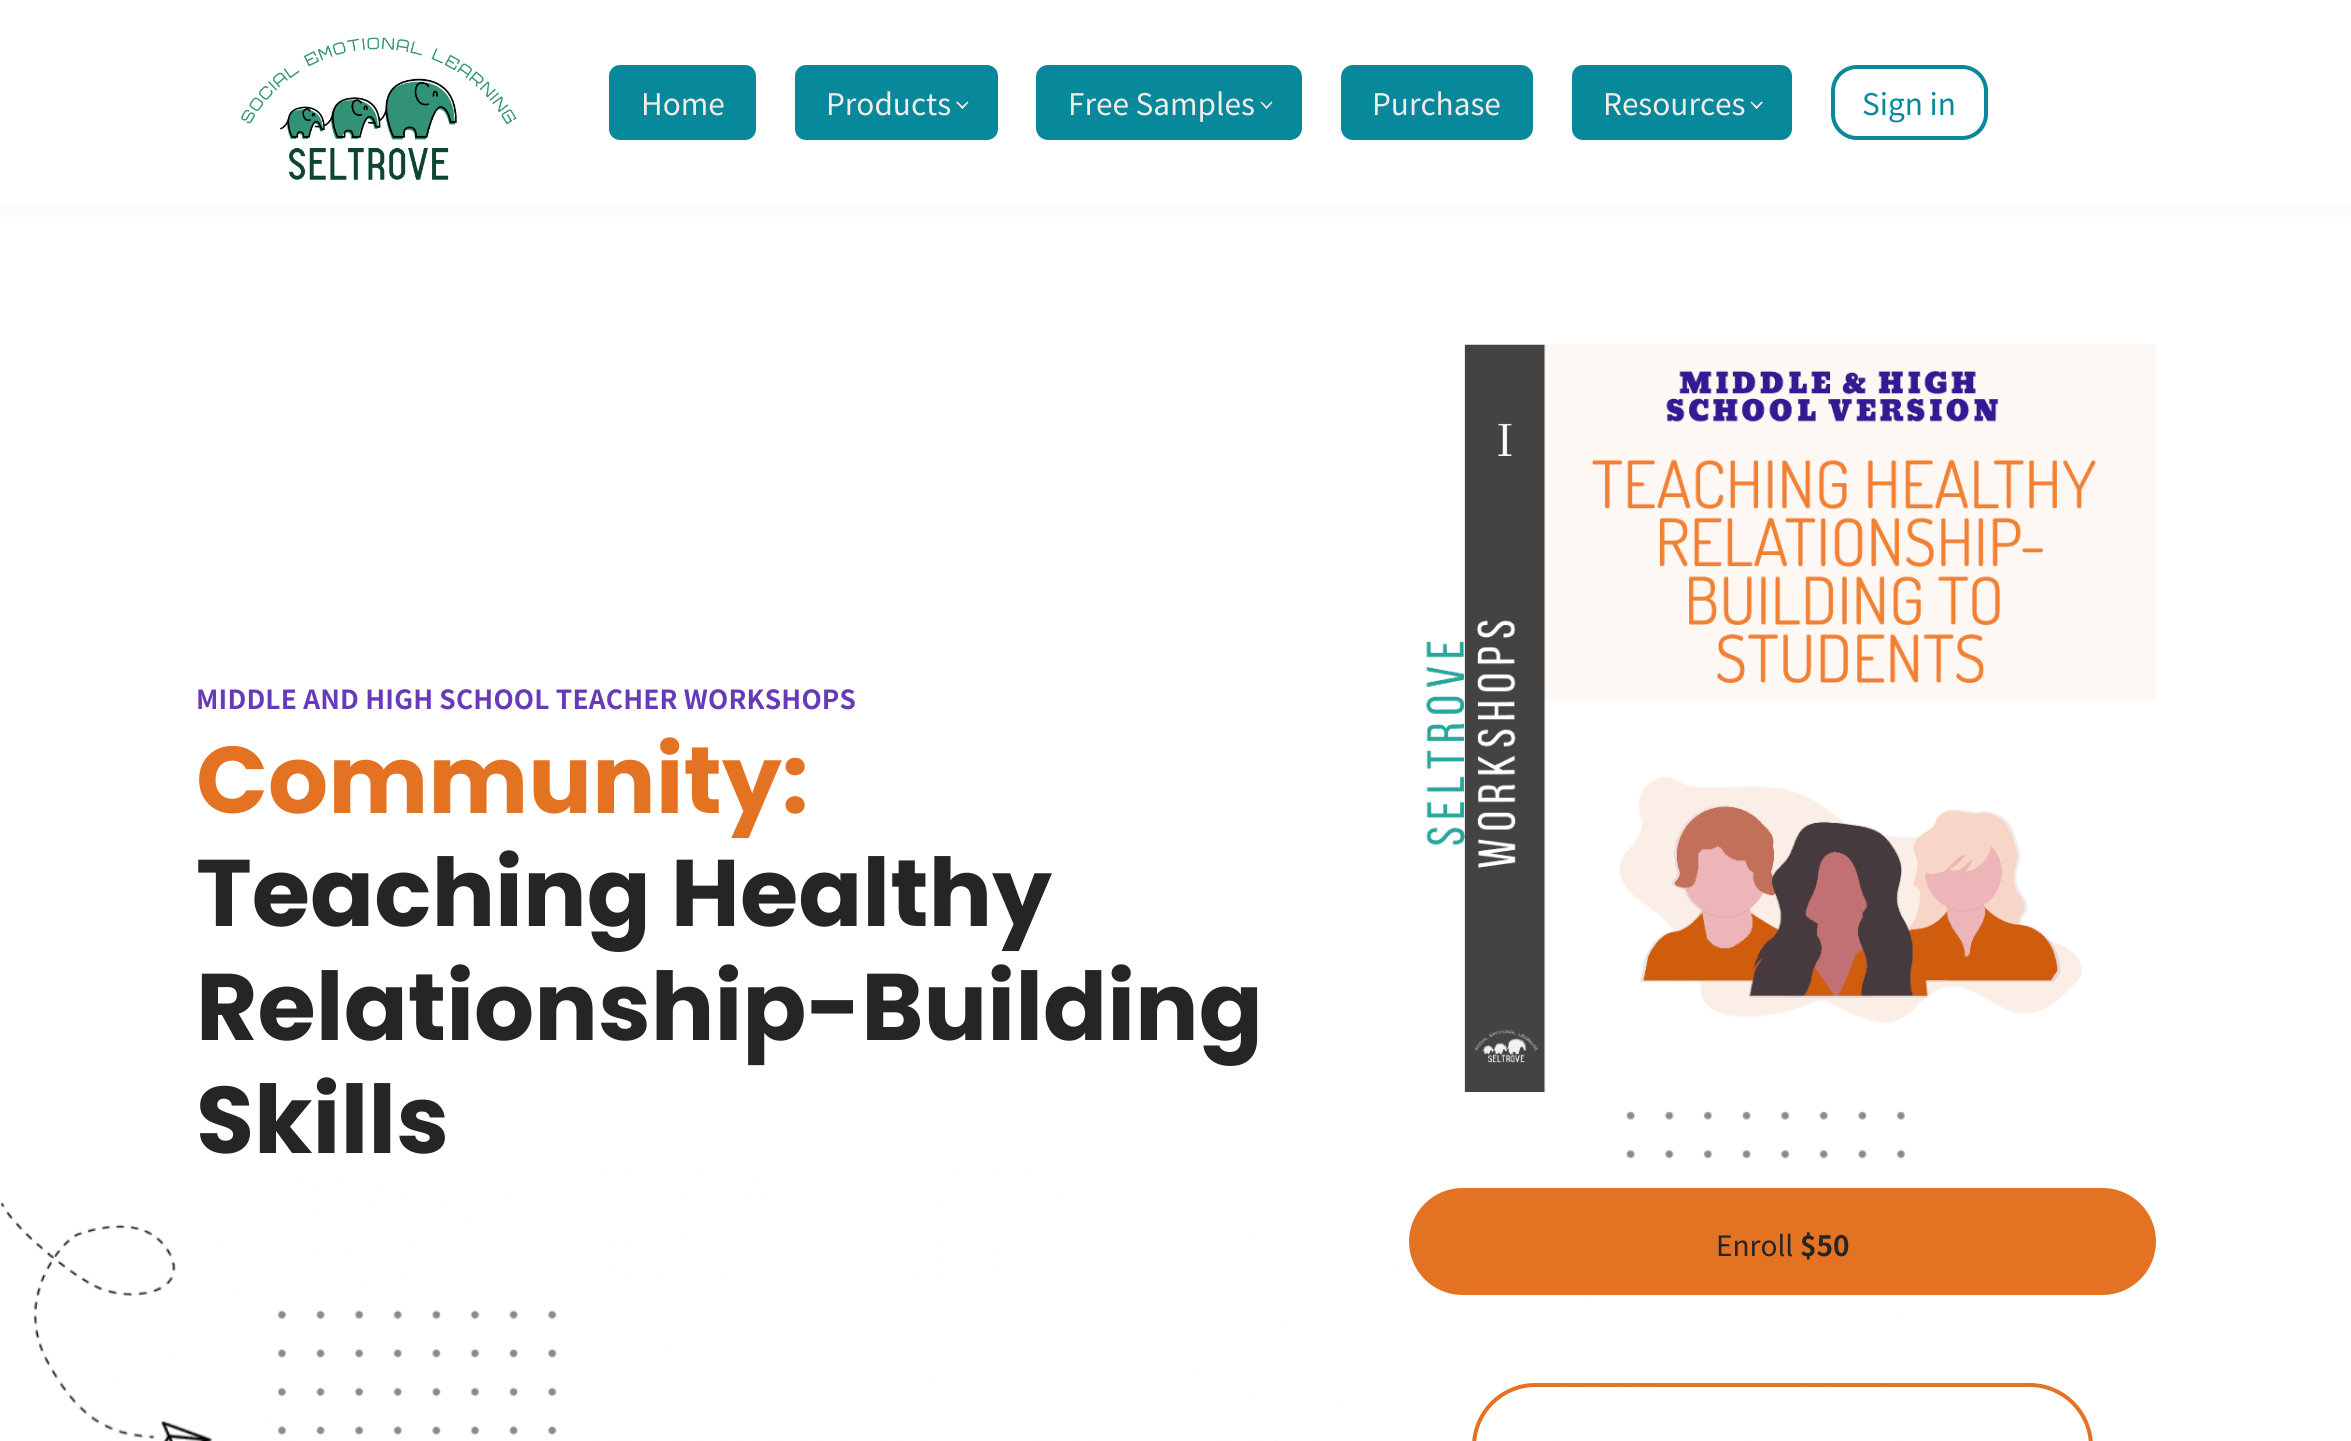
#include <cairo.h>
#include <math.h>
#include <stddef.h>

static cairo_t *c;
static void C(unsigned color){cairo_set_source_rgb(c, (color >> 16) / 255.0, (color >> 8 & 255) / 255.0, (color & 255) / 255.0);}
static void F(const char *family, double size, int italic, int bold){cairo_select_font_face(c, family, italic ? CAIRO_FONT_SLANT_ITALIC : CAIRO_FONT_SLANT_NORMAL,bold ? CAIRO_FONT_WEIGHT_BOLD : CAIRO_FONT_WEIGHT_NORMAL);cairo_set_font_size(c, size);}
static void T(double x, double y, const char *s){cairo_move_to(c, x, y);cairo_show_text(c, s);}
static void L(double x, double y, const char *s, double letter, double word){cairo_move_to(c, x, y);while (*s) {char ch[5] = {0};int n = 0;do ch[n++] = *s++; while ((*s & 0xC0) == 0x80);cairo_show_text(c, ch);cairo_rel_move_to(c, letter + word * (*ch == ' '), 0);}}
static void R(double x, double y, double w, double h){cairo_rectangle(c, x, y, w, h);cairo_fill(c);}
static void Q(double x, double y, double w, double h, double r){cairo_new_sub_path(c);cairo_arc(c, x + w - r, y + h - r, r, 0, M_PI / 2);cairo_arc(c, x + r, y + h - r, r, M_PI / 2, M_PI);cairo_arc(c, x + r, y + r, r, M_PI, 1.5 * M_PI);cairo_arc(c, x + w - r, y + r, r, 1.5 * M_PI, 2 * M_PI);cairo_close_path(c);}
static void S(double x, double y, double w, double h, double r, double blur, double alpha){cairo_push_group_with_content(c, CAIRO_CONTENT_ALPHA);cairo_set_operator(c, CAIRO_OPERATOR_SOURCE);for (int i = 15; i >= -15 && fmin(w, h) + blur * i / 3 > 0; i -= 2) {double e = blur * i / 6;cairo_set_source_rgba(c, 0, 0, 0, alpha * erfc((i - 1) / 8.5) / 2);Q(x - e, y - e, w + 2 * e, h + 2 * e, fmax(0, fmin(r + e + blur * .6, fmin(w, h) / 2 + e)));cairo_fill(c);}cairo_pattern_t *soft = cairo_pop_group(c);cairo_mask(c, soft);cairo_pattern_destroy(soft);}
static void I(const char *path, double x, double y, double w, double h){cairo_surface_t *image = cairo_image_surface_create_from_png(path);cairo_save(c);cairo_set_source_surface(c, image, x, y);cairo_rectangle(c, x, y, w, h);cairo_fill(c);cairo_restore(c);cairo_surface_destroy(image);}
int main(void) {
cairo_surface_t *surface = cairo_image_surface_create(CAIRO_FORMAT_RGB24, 2351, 1441);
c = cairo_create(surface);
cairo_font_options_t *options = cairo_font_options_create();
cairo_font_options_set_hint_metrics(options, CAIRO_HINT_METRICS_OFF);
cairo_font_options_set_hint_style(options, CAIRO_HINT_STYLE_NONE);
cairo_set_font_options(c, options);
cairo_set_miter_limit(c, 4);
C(0xffffff);
cairo_paint(c);
C(0x000000);
S(0,0,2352,205,0,13,.05);
C(0xffffff);
R(0,0,2351,205);
I("1.png",241,37,276,143);
C(0x07889b);
Q(609,65,147,75,11);
cairo_fill(c);
F("Noto Sans JP",29.75,0,0);
C(0xf4ece7);
T(641,115,"Home");
C(0x07889b);
Q(795,65,203,75,11);
cairo_fill(c);
C(0xf4ece7);
T(826,115,"Products");
cairo_new_path(c);
cairo_move_to(c,968.5,102.5);
cairo_line_to(c,962.5,109);
cairo_line_to(c,961,107.5);
cairo_line_to(c,967.5,101.5);
cairo_close_path(c);
cairo_fill(c);
cairo_new_path(c);
cairo_move_to(c,963.5,107.5);
cairo_line_to(c,962.5,109);
cairo_line_to(c,956,102.5);
cairo_line_to(c,957.5,101.5);
cairo_close_path(c);
cairo_fill(c);
C(0x07889b);
Q(1036,65,266,75,12);
cairo_fill(c);
C(0xf4ece7);
T(1068,115,"Free Samples");
cairo_new_path(c);
cairo_move_to(c,1272.5,102.5);
cairo_line_to(c,1266.5,109);
cairo_line_to(c,1265.5,107.5);
cairo_line_to(c,1271.5,101.5);
cairo_close_path(c);
cairo_fill(c);
cairo_new_path(c);
cairo_move_to(c,1267.5,107.5);
cairo_line_to(c,1266.5,109);
cairo_line_to(c,1260.5,102.5);
cairo_line_to(c,1261.5,101.5);
cairo_close_path(c);
cairo_fill(c);
C(0x07889b);
Q(1341,65,192,75,12);
cairo_fill(c);
C(0xf4ece7);
T(1372,115,"Purchase");
C(0x07889b);
Q(1572,65,220,75,11);
cairo_fill(c);
C(0xf4ece7);
T(1603,115,"Resources");
cairo_new_path(c);
cairo_move_to(c,1763,102.5);
cairo_line_to(c,1756.5,109);
cairo_line_to(c,1755.5,107.5);
cairo_line_to(c,1761.5,101.5);
cairo_close_path(c);
cairo_fill(c);
cairo_new_path(c);
cairo_move_to(c,1758,107.5);
cairo_line_to(c,1756.5,109);
cairo_line_to(c,1750.5,102.5);
cairo_line_to(c,1751.5,101.5);
cairo_close_path(c);
cairo_fill(c);
Q(1833,67,153,71,24);
C(0x07889b);
cairo_set_line_width(c,4);
cairo_stroke(c);
T(1862,115,"Sign in");
I("2.png",0,1111,1905,330);
F("Noto Sans JP",26.25,0,1);
C(0x673ab7);
L(196,709,"MIDDLE AND HIGH SCHOOL TEACHER WORKSHOPS",.2,0);
F("Poppins",94.5,0,1);
C(0xe37222);
T(196,813,"Community:");
C(0x252525);
T(196,926,"Teaching Healthy");
T(196,1040,"Relationship-Building");
T(196,1153,"Skills");
I("3.png",1426,344,730,748);
C(0xe37222);
Q(1409,1188,747,107,53.5);
cairo_fill(c);
F("Noto Sans JP",28,0,0);
C(0x252525);
T(1716,1256,"Enroll");
F("Noto Sans JP",28,0,1);
T(1800,1256,"$50");
Q(1474,1385,617,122,61.5);
C(0xe37222);
cairo_stroke(c);
cairo_surface_write_to_png(surface, "o.png");
cairo_font_options_destroy(options);
cairo_destroy(c);
cairo_surface_destroy(surface);
return 0;
}
